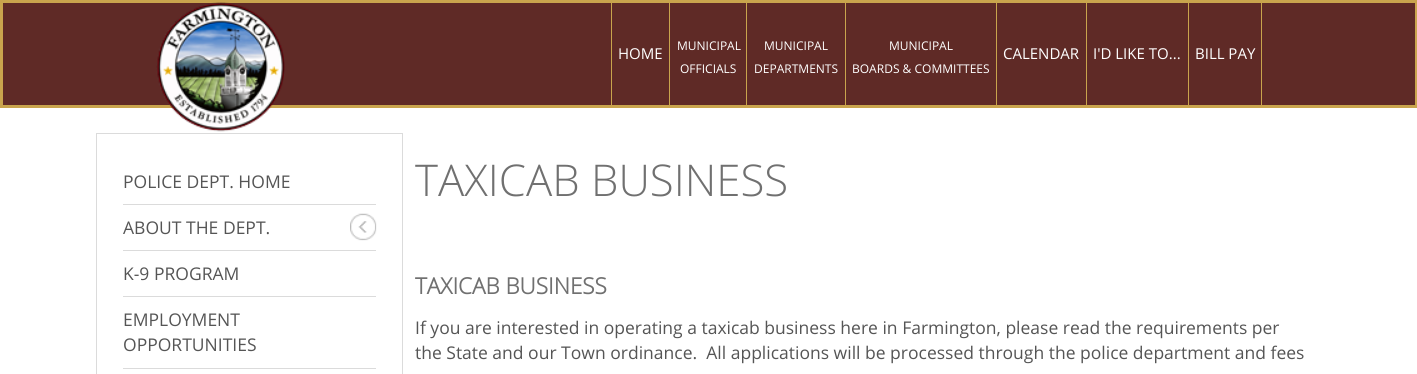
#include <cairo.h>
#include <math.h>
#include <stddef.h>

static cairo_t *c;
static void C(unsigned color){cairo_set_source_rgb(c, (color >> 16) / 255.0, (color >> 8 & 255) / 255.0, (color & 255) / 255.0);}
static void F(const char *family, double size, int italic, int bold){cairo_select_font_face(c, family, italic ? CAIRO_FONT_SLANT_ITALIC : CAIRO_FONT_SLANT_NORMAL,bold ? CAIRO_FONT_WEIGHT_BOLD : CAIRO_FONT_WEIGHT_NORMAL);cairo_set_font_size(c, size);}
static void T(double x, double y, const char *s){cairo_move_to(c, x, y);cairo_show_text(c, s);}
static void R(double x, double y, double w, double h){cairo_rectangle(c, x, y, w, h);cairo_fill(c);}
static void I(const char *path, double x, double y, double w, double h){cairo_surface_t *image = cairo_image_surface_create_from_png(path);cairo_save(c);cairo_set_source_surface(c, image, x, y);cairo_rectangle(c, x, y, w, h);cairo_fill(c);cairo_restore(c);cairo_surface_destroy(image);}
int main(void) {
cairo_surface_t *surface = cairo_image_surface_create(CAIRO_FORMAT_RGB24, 1417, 374);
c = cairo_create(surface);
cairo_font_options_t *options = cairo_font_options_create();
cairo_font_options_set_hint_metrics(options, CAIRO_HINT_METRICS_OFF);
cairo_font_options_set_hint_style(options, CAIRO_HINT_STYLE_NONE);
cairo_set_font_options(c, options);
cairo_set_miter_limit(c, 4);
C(0x5f2a26);
cairo_paint(c);
cairo_rectangle(c,1.5,1.5,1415,105);
C(0xc9a44d);
cairo_set_line_width(c,3);
cairo_stroke(c);
C(0xffffff);
R(0,108,1417,266);
I("1.png",156,2,129,130);
C(0xc9a44d);
R(669,3,1,103);
R(611,3,1,103);
F("Open Sans",15,0,0);
C(0xffffff);
T(618,59,"HOME");
C(0xc9a44d);
R(746,3,1,103);
F("Open Sans",12,0,0);
C(0xffffff);
T(677,50,"MUNICIPAL");
T(680,73,"OFFICIALS");
C(0xc9a44d);
R(845,3,1,103);
C(0xffffff);
T(764,50,"MUNICIPAL");
T(754,73,"DEPARTMENTS");
C(0xc9a44d);
R(996,3,1,103);
C(0xffffff);
T(889,50,"MUNICIPAL");
T(852,73,"BOARDS & COMMITTEES");
C(0xc9a44d);
R(1086,3,1,103);
F("Open Sans",15,0,0);
C(0xffffff);
T(1003,59,"CALENDAR");
C(0xc9a44d);
R(1188,3,1,103);
C(0xffffff);
T(1093,59,"I'D LIKE TO...");
C(0xc9a44d);
R(1261,3,1,103);
C(0xffffff);
T(1195,59,"BILL PAY");
cairo_rectangle(c,96.5,133.5,306,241);
C(0xdbdbdb);
cairo_set_line_width(c,1);
cairo_stroke(c);
F("Open Sans",17.5,0,0);
C(0x555555);
T(123,188,"POLICE DEPT. HOME");
C(0xdbdbdb);
R(123,204,253,1);
I("2.png",350,213,27,28);
C(0x555555);
T(123,234,"ABOUT THE DEPT.");
C(0xdbdbdb);
R(123,250,253,1);
C(0x555555);
T(123,280,"K-9 PROGRAM");
C(0xdbdbdb);
R(123,296,253,1);
C(0x555555);
T(123,326,"EMPLOYMENT");
T(123,351,"OPPORTUNITIES");
C(0xdbdbdb);
R(123,368,253,1);
F("Open Sans Light",43.75,0,0);
C(0x707070);
T(415,196,"TAXICAB BUSINESS");
F("Open Sans",22.5,0,1);
T(415,294,"TAXICAB BUSINESS");
F("Open Sans",17.5,0,0);
C(0x555555);
T(415,334,"If you are interested in operating a taxicab business here in Farmington, please read the requirements per");
T(415,359,"the State and our Town ordinance.  All applications will be processed through the police department and fees");
cairo_surface_write_to_png(surface, "o.png");
cairo_font_options_destroy(options);
cairo_destroy(c);
cairo_surface_destroy(surface);
return 0;
}
